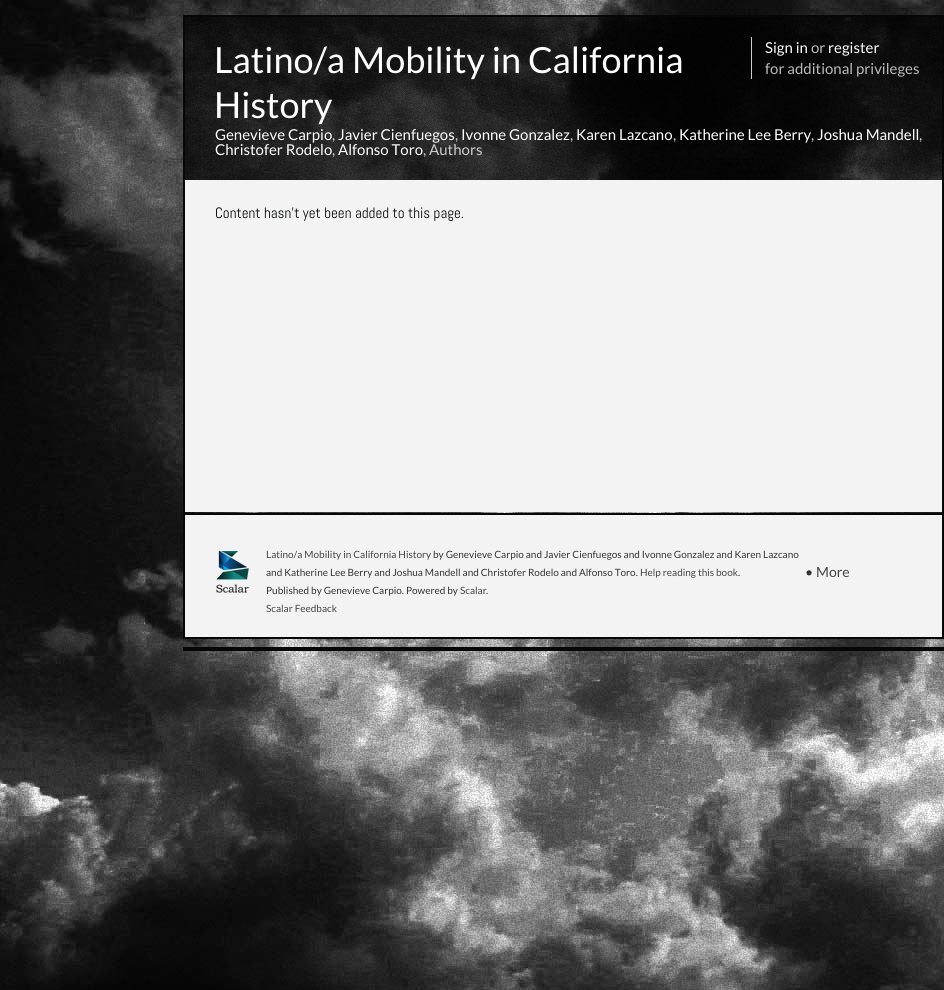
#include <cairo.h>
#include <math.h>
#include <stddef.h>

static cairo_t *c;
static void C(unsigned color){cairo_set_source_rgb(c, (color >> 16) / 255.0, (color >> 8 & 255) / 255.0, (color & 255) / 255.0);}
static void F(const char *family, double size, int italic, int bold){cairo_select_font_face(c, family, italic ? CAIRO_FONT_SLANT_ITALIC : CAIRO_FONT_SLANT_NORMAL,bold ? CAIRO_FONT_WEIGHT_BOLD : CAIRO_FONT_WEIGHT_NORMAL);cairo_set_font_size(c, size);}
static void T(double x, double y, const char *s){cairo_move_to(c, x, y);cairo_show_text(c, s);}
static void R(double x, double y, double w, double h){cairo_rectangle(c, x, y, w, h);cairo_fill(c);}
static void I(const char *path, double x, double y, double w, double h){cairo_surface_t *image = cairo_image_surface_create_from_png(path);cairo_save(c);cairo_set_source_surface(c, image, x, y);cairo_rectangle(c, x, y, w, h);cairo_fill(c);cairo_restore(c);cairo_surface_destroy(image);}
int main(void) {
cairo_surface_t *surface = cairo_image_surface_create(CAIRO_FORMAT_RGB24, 944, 990);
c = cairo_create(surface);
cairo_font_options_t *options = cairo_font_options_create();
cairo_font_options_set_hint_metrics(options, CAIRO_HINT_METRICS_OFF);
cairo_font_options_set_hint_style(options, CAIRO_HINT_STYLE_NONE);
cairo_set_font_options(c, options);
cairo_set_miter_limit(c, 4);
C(0xffffff);
cairo_paint(c);
I("1.png",0,0,944,990);
cairo_set_source_rgba(c,0.004,0.004,0.004,0.75);
R(185,17,757,163);
C(0x050708);
R(183,15,761,2);
R(942,15,2,624);
R(183,15,2,165);
F("Lato",36,0,0);
C(0xffffff);
T(214,73,"Latino/a Mobility in California");
T(214,118,"History");
C(0xcccccc);
R(751,37,1,42);
F("Lato",15,0,0);
C(0xffffff);
T(765,53,"Sign in");
C(0xbbbbbb);
T(811,53,"or");
C(0xffffff);
T(828,53,"register");
C(0xbbbbbb);
T(765,74,"for additional privileges");
C(0xffffff);
T(215,140,"Genevieve Carpio");
C(0xcccccc);
T(332,140,",");
C(0xffffff);
T(338,140,"Javier Cienfuegos");
C(0xcccccc);
T(455,140,",");
C(0xffffff);
T(461,140,"Ivonne Gonzalez");
C(0xcccccc);
T(570,140,",");
C(0xffffff);
T(576,140,"Karen Lazcano");
C(0xcccccc);
T(673,140,",");
C(0xffffff);
T(679,140,"Katherine Lee Berry");
C(0xcccccc);
T(811,140,",");
C(0xffffff);
T(817,140,"Joshua Mandell");
C(0xcccccc);
T(919,140,",");
C(0xffffff);
T(215,155,"Christofer Rodelo");
C(0xcccccc);
T(332,155,",");
C(0xffffff);
T(338,155,"Alfonso Toro");
C(0xcccccc);
T(423,155,", Authors");
C(0x050708);
R(183,513,761,2);
R(183,180,2,335);
C(0xf3f3f4);
R(185,180,757,332);
F("Abel",15,0,0);
C(0x050708);
T(215,218,"Content hasn't yet been added to this page.");
C(0xf3f3f4);
R(185,515,757,122);
C(0x050708);
R(183,637,761,2);
R(183,515,2,124);
I("2.png",216,551,33,42);
F("Lato",10,0,0);
C(0x444444);
T(266,558,"Latino/a Mobility in California History");
C(0x333333);
T(433,558,"by Genevieve Carpio and Javier Cienfuegos and Ivonne Gonzalez and Karen Lazcano");
T(266,576,"and Katherine Lee Berry and Joshua Mandell and Christofer Rodelo and Alfonso Toro.");
C(0x444444);
T(640,576,"Help reading this book");
C(0x333333);
T(738,576,".");
T(266,594,"Published by Genevieve Carpio. Powered by");
C(0x444444);
T(460,594,"Scalar");
C(0x333333);
T(486,594,".");
C(0x444444);
T(266,612,"Scalar Feedback");
F("Lato",14,0,0);
C(0x333333);
T(805,577,"•");
C(0x444444);
T(816,577,"More");
C(0x050708);
R(183,647,761,4);
cairo_surface_write_to_png(surface, "o.png");
cairo_font_options_destroy(options);
cairo_destroy(c);
cairo_surface_destroy(surface);
return 0;
}
